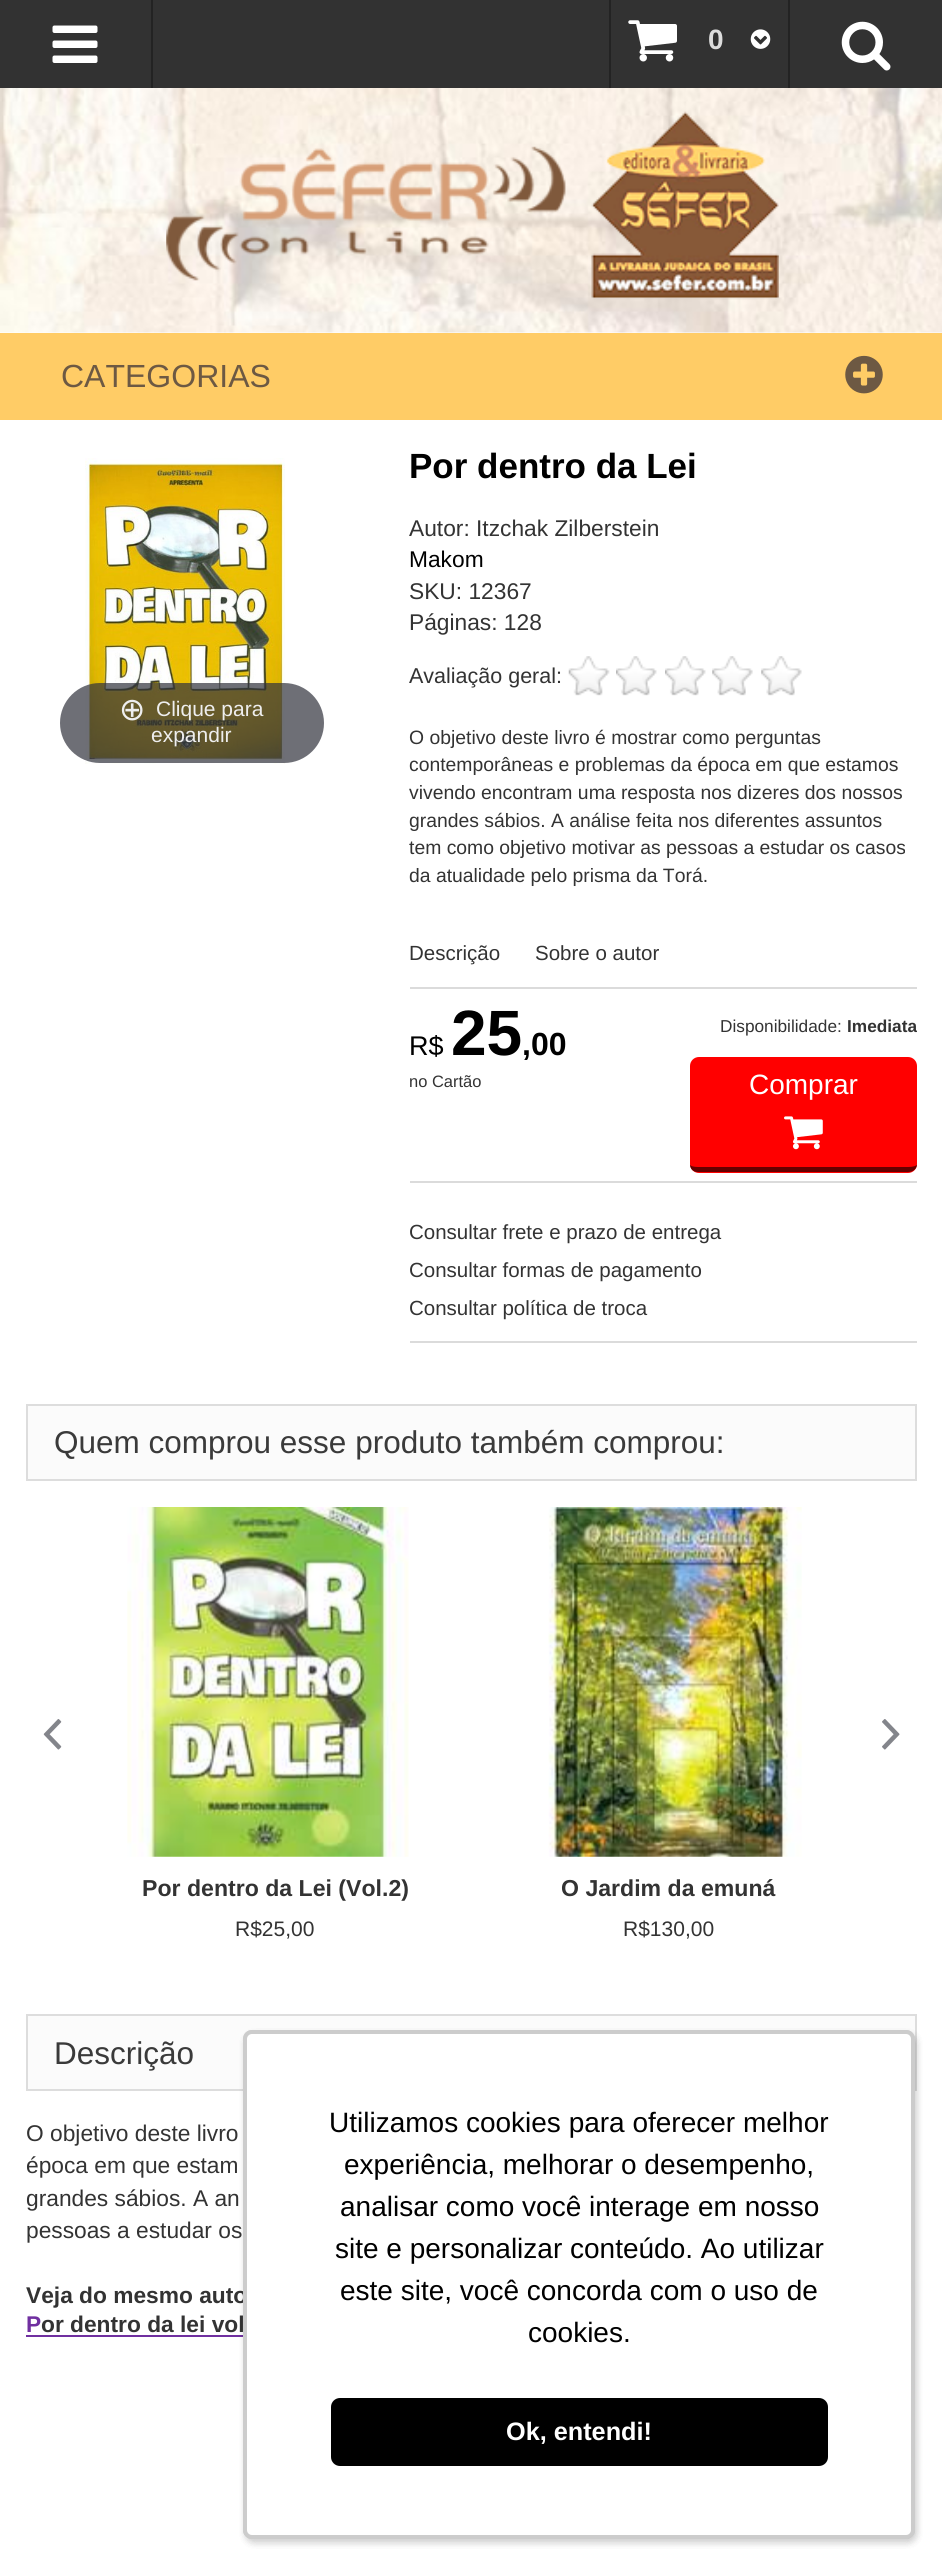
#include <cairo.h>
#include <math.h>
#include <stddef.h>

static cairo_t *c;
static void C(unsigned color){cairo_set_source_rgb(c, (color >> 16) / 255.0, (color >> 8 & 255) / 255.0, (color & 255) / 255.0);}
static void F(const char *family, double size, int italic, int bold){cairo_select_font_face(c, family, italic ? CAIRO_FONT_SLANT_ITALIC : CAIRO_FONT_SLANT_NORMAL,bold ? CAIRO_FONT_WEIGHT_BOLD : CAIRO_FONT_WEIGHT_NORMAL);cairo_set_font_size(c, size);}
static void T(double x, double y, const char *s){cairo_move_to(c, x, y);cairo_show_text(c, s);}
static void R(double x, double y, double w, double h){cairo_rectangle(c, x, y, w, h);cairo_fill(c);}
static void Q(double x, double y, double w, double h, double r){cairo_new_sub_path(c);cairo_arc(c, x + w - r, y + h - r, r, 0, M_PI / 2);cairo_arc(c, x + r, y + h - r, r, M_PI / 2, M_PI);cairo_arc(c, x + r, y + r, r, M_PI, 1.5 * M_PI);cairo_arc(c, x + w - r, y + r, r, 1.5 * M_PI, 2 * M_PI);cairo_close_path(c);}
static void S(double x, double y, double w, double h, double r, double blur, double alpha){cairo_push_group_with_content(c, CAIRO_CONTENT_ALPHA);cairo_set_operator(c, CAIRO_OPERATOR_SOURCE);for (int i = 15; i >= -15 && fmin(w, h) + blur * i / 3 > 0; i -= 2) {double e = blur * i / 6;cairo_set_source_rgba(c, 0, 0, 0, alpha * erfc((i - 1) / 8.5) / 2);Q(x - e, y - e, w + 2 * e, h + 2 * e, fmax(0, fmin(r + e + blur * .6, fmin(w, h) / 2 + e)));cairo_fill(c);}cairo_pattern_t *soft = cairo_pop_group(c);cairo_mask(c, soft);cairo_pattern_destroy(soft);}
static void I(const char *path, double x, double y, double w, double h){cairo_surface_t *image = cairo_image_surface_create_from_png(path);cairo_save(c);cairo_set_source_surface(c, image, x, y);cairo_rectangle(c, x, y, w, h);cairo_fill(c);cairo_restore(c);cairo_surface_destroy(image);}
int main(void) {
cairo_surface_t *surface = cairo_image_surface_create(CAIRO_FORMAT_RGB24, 942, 2567);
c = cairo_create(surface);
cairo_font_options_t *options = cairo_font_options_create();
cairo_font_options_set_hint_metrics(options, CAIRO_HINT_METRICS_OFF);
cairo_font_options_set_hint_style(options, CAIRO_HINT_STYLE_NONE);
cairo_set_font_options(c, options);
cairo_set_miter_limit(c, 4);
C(0xffffff);
cairo_paint(c);
C(0x323232);
R(0,0,942,88);
C(0x232323);
R(151,0,2,88);
I("1.png",52,25,46,38);
R(788,0,2,88);
I("2.png",841,21,50,50);
I("3.png",0,88,942,245);
R(609,0,2,88);
I("4.png",628,20,49,42);
F("Liberation Sans",28,0,1);
C(0xdddddd);
T(708,49,"0");
I("5.png",750,29,21,20);
I("6.png",166,111,613,189);
C(0xffcc66);
R(0,333,942,87);
F("Liberation Sans",32,0,0);
C(0x6d5943);
T(61,387,"CATEGORIAS");
I("7.png",845,355,38,39);
I("8.png",85,458,200,306);
cairo_set_source_rgba(c,0.192,0.2,0.239,0.7);
Q(60,683,264,80,40);
cairo_fill(c);
F("DejaVu Sans",31.5,0,0);
C(0xeeeeee);
T(119,720,"⊕");
F("Liberation Sans",21,0,0);
T(156,716,"Clique para");
T(151,742,"expandir");
F("Liberation Sans",35,0,1);
C(0x000000);
T(409,478,"Por dentro da Lei");
F("Liberation Sans",22.75,0,0);
C(0x333333);
T(409,536,"Autor: Itzchak Zilberstein");
C(0x000000);
T(409,567,"Makom");
C(0x333333);
T(409,599,"SKU: 12367");
T(409,630,"Páginas: 128");
F("Liberation Sans",21.5,0,0);
T(409,683,"Avaliação geral:");
I("9.png",568,656,42,40);
I("10.png",616,656,41,40);
I("10.png",665,656,41,40);
I("11.png",712,656,41,40);
I("12.png",761,656,41,40);
F("Liberation Sans",19.35,0,0);
T(409,744,"O objetivo deste livro é mostrar como perguntas");
T(409,771,"contemporâneas e problemas da época em que estamos");
T(409,799,"vivendo encontram uma resposta nos dizeres dos nossos");
T(409,827,"grandes sábios. A análise feita nos diferentes assuntos");
T(409,854,"tem como objetivo motivar as pessoas a estudar os casos");
T(409,882,"da atualidade pelo prisma da Torá.");
F("Liberation Sans",20.5,0,0);
T(409,960,"Descrição");
T(535,960,"Sobre o autor");
C(0xdbdbdb);
R(410,987,507,2);
F("Liberation Sans",27,0,0);
C(0x000000);
T(409,1055,"R$");
F("Liberation Sans",64,0,1);
T(451,1055,"25");
F("Liberation Sans",32,0,1);
T(522,1055,",00");
F("Liberation Sans",16.5,0,0);
C(0x333333);
T(409,1087,"no Cartão");
F("Liberation Sans",17.25,0,0);
T(720,1032,"Disponibilidade:");
F("Liberation Sans",17.25,0,1);
T(847,1032,"Imediata");
C(0xff0000);
Q(690,1057,227,116,9);
cairo_fill(c);
C(0x660000);
cairo_new_path(c);
cairo_move_to(c,908,1172);
cairo_curve_to(c,913,1172,917,1169,917,1164);
cairo_curve_to(c,917,1166,913,1167,908,1167);
cairo_line_to(c,698,1167);
cairo_curve_to(c,693,1167,690,1166,690,1164);
cairo_curve_to(c,690,1169,693,1172,698,1172);
cairo_close_path(c);
cairo_fill(c);
F("Liberation Sans",28,0,0);
C(0xffffff);
T(749,1094,"Comprar");
I("13.png",784,1116,39,34);
C(0xdbdbdb);
R(410,1181,507,2);
F("Liberation Sans",20.5,0,0);
C(0x333333);
T(409,1239,"Consultar frete e prazo de entrega");
T(409,1277,"Consultar formas de pagamento");
T(409,1315,"Consultar política de troca");
C(0xdbdbdb);
R(410,1341,507,2);
C(0xfbfbfb);
cairo_rectangle(c,27,1405,889,75);
cairo_fill_preserve(c);
C(0xdddddd);
cairo_stroke(c);
F("Liberation Sans",31.5,0,0);
C(0x3a3a3a);
T(54,1453,"Quem comprou esse produto também comprou:");
I("14.png",43,1719,19,31);
I("15.png",882,1719,18,31);
I("16.png",127,1507,282,350);
F("Liberation Sans",23.1,0,1);
C(0x333333);
T(142,1896,"Por dentro da Lei (Vol.2)");
F("Liberation Sans",21,0,0);
T(235,1936,"R$25,00");
I("17.png",548,1507,254,350);
F("Liberation Sans",23.1,0,1);
T(561,1896,"O Jardim da emuná");
F("Liberation Sans",21,0,0);
T(623,1936,"R$130,00");
C(0xfbfbfb);
cairo_rectangle(c,27,2015,889,75);
cairo_fill_preserve(c);
C(0xdddddd);
cairo_stroke(c);
F("Liberation Sans",31.5,0,0);
C(0x3a3a3a);
T(54,2064,"Descrição");
F("Liberation Sans",22.75,0,0);
C(0x333333);
T(26,2141,"O objetivo deste livro");
T(26,2173,"época em que estam");
T(26,2206,"grandes sábios. A an");
T(26,2238,"pessoas a estudar os");
F("Liberation Sans",22.75,0,1);
T(26,2303,"Veja do mesmo auto");
C(0x7030a0);
T(26,2332,"P");
R(26,2335,217,2);
C(0x333333);
T(41,2332,"or dentro da lei vol");
C(0x000000);
S(245,2034,672,509,9,3.5,.1);
Q(245,2032,668,505,7);
C(0xcccccc);
cairo_set_line_width(c,4);
cairo_stroke(c);
C(0x000000);
S(245,2034,672,509,9,3.5,.1);
C(0xffffff);
Q(243,2030,672,509,9);
cairo_fill(c);
Q(245,2032,668,505,7);
cairo_set_source_rgba(c,0,0,0,0.2);
cairo_stroke(c);
F("Liberation Sans",28,0,0);
C(0x000000);
T(329,2132,"Utilizamos cookies para oferecer melhor");
T(344,2174,"experiência, melhorar o desempenho,");
T(340,2216,"analisar como você interage em nosso");
T(335,2258,"site e personalizar conteúdo. Ao utilizar");
T(340,2300,"este site, você concorda com o uso de");
T(528,2342,"cookies.");
Q(331,2398,497,68,9);
cairo_fill(c);
F("Liberation Sans",25.25,0,1);
C(0xffffff);
T(506,2440,"Ok, entendi!");
cairo_surface_write_to_png(surface, "o.png");
cairo_font_options_destroy(options);
cairo_destroy(c);
cairo_surface_destroy(surface);
return 0;
}
